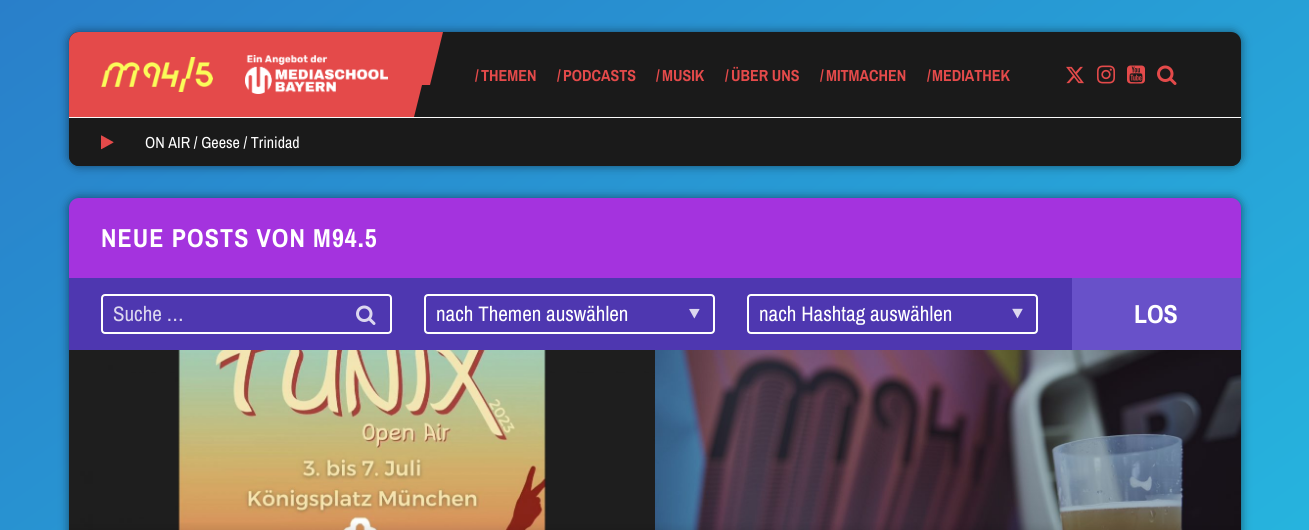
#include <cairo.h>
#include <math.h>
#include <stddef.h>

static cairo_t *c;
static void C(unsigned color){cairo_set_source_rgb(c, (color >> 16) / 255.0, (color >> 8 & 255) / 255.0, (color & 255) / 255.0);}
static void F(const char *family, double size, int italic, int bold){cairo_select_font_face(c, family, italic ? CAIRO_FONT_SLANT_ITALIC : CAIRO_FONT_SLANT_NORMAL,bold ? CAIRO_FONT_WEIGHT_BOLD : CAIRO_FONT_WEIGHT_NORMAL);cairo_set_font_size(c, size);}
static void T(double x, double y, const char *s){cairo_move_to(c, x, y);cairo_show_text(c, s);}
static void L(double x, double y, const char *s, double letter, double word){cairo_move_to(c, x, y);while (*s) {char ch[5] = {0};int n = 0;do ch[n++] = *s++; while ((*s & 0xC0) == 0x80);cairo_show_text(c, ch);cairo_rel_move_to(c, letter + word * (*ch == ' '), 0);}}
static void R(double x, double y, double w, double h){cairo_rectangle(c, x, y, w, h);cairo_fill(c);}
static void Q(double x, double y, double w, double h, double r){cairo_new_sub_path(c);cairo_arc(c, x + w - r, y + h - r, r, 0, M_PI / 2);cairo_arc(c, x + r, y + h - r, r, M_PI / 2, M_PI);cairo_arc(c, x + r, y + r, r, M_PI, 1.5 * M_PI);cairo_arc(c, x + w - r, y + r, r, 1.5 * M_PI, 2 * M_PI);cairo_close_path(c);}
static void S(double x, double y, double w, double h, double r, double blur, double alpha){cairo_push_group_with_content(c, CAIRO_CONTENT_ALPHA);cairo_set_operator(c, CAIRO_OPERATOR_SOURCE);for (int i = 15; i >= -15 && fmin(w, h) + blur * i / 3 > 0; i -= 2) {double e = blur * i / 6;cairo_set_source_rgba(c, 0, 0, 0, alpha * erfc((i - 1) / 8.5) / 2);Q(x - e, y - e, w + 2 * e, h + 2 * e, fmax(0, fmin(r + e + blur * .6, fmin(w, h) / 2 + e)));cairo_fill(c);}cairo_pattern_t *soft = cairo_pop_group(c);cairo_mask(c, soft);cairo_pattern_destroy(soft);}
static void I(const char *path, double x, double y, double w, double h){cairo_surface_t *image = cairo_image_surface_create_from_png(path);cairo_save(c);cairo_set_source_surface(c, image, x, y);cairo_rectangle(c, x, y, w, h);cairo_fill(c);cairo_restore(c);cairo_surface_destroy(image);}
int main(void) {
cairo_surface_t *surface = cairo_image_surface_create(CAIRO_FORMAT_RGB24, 1309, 530);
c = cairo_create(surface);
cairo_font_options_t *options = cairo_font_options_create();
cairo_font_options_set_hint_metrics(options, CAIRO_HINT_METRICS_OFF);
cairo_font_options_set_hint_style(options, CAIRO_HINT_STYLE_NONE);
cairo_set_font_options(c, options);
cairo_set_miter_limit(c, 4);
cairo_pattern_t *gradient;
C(0xffffff);
cairo_paint(c);
gradient = cairo_pattern_create_linear(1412,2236,-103,72);
cairo_pattern_add_color_stop_rgba(gradient,0,0.133,0.957,0.965,1);
cairo_pattern_add_color_stop_rgba(gradient,1,0.161,0.498,0.792,1);
cairo_set_source(c,gradient);
cairo_pattern_destroy(gradient);
R(0,0,1309,530);
C(0x000000);
S(69,32,1172,134,10,5,.5);
C(0x1a1a1a);
Q(69,32,1172,134,10);
cairo_fill(c);
C(0xfafafa);
R(69,117,1172,1);
C(0xe44a4a);
cairo_new_path(c);
cairo_move_to(c,79,32);
cairo_line_to(c,229,32);
cairo_line_to(c,229,117);
cairo_line_to(c,69,117);
cairo_line_to(c,69,42);
cairo_curve_to(c,69,36.5,73.5,32,79,32);
cairo_close_path(c);
cairo_fill(c);
I("1.png",101,57,112,35);
R(229,32,174,85);
I("2.png",245,55,143,39);
cairo_set_fill_rule(c,CAIRO_FILL_RULE_EVEN_ODD);
cairo_new_path(c);
cairo_move_to(c,433,32);
cairo_line_to(c,443,32);
cairo_line_to(c,430,85);
cairo_line_to(c,422,85);
cairo_line_to(c,414,117);
cairo_line_to(c,403,117);
cairo_line_to(c,403,32);
cairo_close_path(c);
cairo_fill(c);
F("Archivo Narrow",16,0,1);
T(475,81,"/");
T(481,81,"THEMEN");
T(557,81,"/");
T(563,81,"PODCASTS");
T(656,81,"/");
T(662,81,"MUSIK");
T(725,81,"/");
T(731,81,"ÜBER UNS");
T(820,81,"/");
T(826,81,"MITMACHEN");
T(927,81,"/");
T(932,81,"MEDIATHEK");
I("3.png",1066,66,18,18);
I("4.png",1097,65,18,19);
I("5.png",1127,65,18,19);
I("6.png",1157,65,20,20);
C(0x1a1a1a);
cairo_new_path(c);
cairo_move_to(c,69,118);
cairo_line_to(c,1241,118);
cairo_line_to(c,1241,156);
cairo_curve_to(c,1241,161.5,1236.5,166,1231,166);
cairo_line_to(c,79,166);
cairo_curve_to(c,73.5,166,69,161.5,69,156);
cairo_close_path(c);
cairo_fill(c);
I("7.png",101,135,13,15);
F("Archivo Narrow",16,0,0);
C(0xffffff);
T(145,148,"ON AIR / Geese / Trinidad");
C(0x000000);
S(69,198,1172,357,10,5,.5);
C(0xa433de);
cairo_new_path(c);
cairo_move_to(c,79,198);
cairo_line_to(c,1231,198);
cairo_curve_to(c,1236.5,198,1241,202.5,1241,208);
cairo_line_to(c,1241,278);
cairo_line_to(c,69,278);
cairo_line_to(c,69,208);
cairo_curve_to(c,69,202.5,73.5,198,79,198);
cairo_close_path(c);
cairo_fill(c);
F("Archivo Narrow",26,0,1);
C(0xffffff);
L(101,247,"NEUE POSTS VON M94.5",1.1,0);
C(0x4e37b0);
R(69,278,1003,72);
Q(102,295,289,38,3);
C(0xffffff);
cairo_stroke(c);
F("Archivo Narrow",21,0,0);
C(0xdcd7ef);
T(113,321,"Suche …");
I("8.png",356,305,20,20);
Q(425,295,289,38,3);
C(0xffffff);
cairo_stroke(c);
T(436,321,"nach Themen auswählen");
I("9.png",689,308,11,11);
Q(748,295,289,38,3);
cairo_stroke(c);
T(759,321,"nach Hashtag auswählen");
I("10.png",1012,308,11,11);
C(0x6851c9);
R(1072,278,169,72);
F("Archivo Narrow",26,0,1);
C(0xffffff);
T(1134,323,"LOS");
I("11.png",69,350,586,180);
I("12.png",655,350,586,180);
cairo_surface_write_to_png(surface, "o.png");
cairo_font_options_destroy(options);
cairo_destroy(c);
cairo_surface_destroy(surface);
return 0;
}
